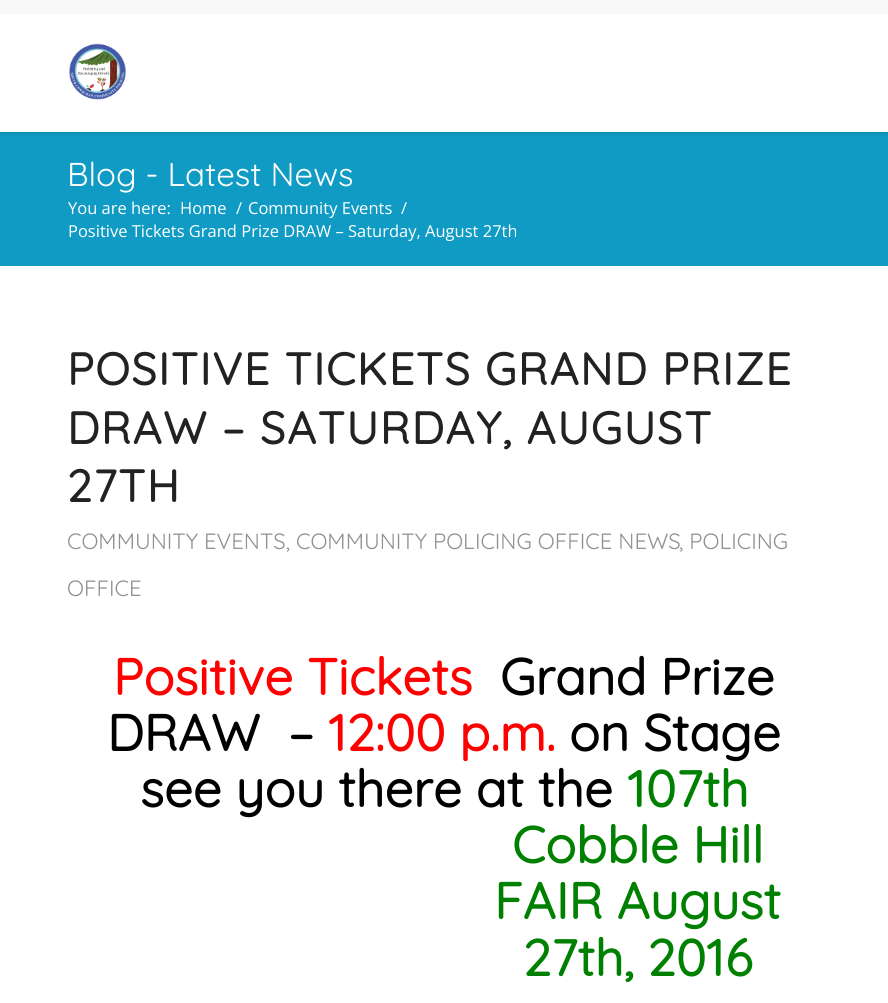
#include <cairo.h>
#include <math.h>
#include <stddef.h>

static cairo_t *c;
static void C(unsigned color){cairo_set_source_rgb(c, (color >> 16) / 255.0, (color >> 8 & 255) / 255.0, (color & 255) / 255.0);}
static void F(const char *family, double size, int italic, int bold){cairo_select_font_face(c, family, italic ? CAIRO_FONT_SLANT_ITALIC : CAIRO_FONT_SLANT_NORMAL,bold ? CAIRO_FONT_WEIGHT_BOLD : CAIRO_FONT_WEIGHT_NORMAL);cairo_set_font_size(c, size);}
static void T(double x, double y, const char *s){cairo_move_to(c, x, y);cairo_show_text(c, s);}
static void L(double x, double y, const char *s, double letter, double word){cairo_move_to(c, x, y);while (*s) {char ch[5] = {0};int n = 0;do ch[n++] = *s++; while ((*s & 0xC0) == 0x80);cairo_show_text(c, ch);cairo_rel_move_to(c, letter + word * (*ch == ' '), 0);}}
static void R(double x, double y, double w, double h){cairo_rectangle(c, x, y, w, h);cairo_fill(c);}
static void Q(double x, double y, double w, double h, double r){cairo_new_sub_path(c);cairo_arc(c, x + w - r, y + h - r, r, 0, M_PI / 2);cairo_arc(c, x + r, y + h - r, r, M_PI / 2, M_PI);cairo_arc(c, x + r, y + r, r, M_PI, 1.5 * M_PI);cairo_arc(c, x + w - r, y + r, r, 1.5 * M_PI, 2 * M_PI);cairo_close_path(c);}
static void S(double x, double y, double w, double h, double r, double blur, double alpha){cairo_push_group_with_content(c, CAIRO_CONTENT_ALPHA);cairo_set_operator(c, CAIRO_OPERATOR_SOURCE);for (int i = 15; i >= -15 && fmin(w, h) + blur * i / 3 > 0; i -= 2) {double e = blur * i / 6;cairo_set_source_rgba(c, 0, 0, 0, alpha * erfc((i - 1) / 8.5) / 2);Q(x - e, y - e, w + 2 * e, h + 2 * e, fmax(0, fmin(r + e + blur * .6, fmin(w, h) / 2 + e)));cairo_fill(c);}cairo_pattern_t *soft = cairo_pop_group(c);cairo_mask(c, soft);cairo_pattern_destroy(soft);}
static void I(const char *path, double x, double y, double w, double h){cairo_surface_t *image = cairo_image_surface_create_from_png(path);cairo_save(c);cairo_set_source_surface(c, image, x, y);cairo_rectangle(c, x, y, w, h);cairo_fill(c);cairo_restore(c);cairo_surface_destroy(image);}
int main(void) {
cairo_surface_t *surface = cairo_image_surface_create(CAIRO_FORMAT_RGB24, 888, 1003);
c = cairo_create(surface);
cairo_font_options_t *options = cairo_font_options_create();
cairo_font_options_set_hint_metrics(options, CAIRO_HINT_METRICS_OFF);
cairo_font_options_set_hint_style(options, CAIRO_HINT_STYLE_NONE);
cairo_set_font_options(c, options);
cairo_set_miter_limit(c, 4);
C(0xffffff);
cairo_paint(c);
C(0x109bc5);
R(0,132,888,134);
C(0x000000);
S(-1,-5,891,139,0,1.5,.1);
C(0xf8f8f8);
R(0,0,888,14);
C(0xffffff);
R(0,14,888,118);
I("1.png",69,43,57,57);
F("Quicksand Light",33,0,0);
T(67,186,"Blog - Latest News");
F("Open Sans",16.5,0,0);
T(68,214,"You are here:");
T(180,214,"Home");
T(236,214,"/");
T(248,214,"Community Events");
T(401,214,"/");
T(68,237,"Positive Tickets Grand Prize DRAW – Saturday, August 27th");
F("Quicksand",45,0,1);
C(0x222222);
L(67,385,"POSITIVE TICKETS GRAND PRIZE",1.5,0);
L(67,444,"DRAW – SATURDAY, AUGUST",1.5,0);
L(67,502,"27TH",1.5,0);
F("Quicksand Light",22.1,0,0);
C(0x919191);
T(67,549,"COMMUNITY EVENTS, COMMUNITY POLICING OFFICE NEWS");
T(679,549,", POLICING");
T(67,596,"OFFICE");
F("Quicksand",51,0,1);
C(0xff0000);
T(113,695,"Positive Tickets");
C(0x000000);
T(500,695,"Grand Prize");
T(107,751,"DRAW  –");
C(0xff0000);
T(328,751,"12:00 p.m.");
C(0x000000);
T(569,751,"on Stage");
T(140,807,"see you there at the");
C(0x008000);
T(627,807,"107th");
T(512,863,"Cobble Hill");
T(494,919,"FAIR August");
T(523,976,"27th, 2016");
cairo_surface_write_to_png(surface, "o.png");
cairo_font_options_destroy(options);
cairo_destroy(c);
cairo_surface_destroy(surface);
return 0;
}
